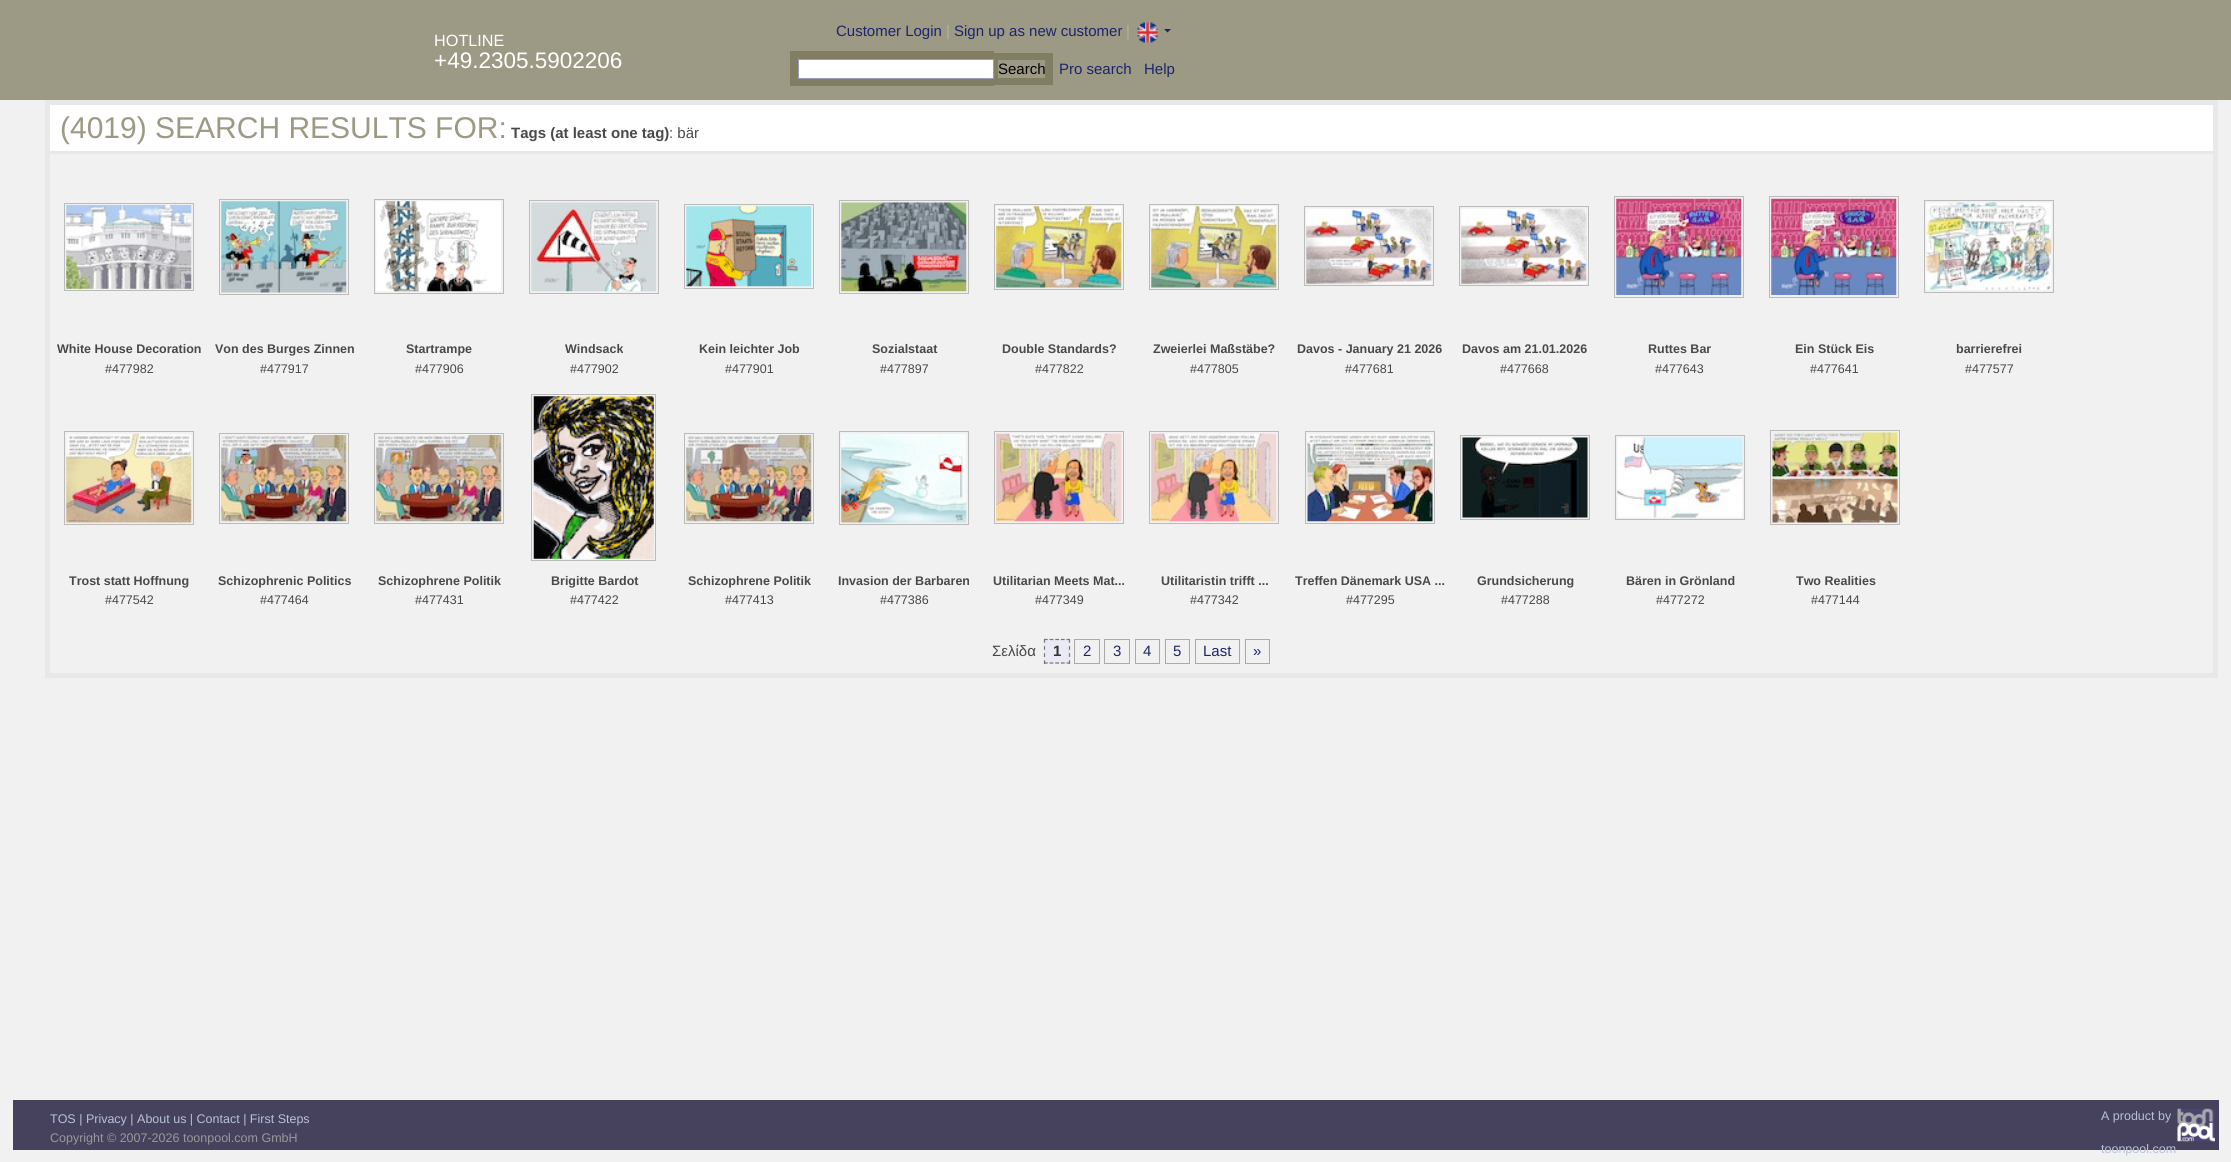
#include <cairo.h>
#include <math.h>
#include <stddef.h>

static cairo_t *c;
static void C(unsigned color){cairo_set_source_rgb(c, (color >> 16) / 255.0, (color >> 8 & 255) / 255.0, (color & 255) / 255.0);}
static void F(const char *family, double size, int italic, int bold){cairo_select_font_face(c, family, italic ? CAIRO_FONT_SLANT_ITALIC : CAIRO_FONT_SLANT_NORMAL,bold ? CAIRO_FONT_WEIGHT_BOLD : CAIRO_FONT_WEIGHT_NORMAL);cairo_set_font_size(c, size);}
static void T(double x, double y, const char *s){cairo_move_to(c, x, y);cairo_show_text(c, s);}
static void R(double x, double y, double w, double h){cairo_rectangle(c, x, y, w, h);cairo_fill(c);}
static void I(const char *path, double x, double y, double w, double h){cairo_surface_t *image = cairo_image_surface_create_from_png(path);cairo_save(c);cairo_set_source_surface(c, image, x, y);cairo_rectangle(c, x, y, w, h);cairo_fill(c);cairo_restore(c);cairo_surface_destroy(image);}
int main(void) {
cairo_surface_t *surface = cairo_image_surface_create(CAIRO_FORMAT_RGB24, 2231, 1162);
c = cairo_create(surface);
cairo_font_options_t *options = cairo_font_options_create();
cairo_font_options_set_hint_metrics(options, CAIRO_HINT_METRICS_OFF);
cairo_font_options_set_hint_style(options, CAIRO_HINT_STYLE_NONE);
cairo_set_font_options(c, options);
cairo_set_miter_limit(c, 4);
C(0xf1f1f1);
cairo_paint(c);
C(0x9c9984);
R(0,0,2231,100);
F("Liberation Sans",15,0,0);
C(0x1d246c);
T(836,36,"Customer Login");
C(0xb5b29b);
T(946,36,"|");
C(0x1d246c);
T(954,36,"Sign up as new customer");
C(0xb5b29b);
T(1126,36,"|");
I("1.png",1137,22,21,21);
C(0x1d246c);
cairo_new_path(c);
cairo_move_to(c,1164,29);
cairo_line_to(c,1171,29);
cairo_line_to(c,1167.5,32.5);
cairo_close_path(c);
cairo_fill(c);
F("Liberation Sans",16.25,0,0);
C(0xffffff);
T(434,46,"HOTLINE");
F("Liberation Sans",22.5,0,0);
T(434,68,"+49.2305.5902206");
C(0x827e63);
R(790,51,204,35);
R(994,53,59,32);
C(0xffffff);
cairo_rectangle(c,798.5,59.5,195,19);
cairo_fill_preserve(c);
C(0x999cbb);
cairo_set_line_width(c,1);
cairo_stroke(c);
C(0x9c9984);
R(998,60,47,18);
F("Liberation Sans",15,0,0);
C(0x000000);
T(998,74,"Search");
C(0x1d246c);
T(1059,74,"Pro search");
T(1144,74,"Help");
cairo_rectangle(c,47.5,102.5,2168,573);
C(0xe8e8e8);
cairo_set_line_width(c,5);
cairo_stroke(c);
C(0xffffff);
R(50,105,2163,46);
F("Liberation Sans",30,0,0);
C(0x9c9984);
T(60,138,"(4019) SEARCH RESULTS FOR:");
F("Liberation Sans",15,0,1);
C(0x494949);
T(511,138,"Tags (at least one tag)");
F("Liberation Sans",15,0,0);
T(669,138,": bär");
C(0xe8e8e8);
R(50,151,2163,3);
cairo_rectangle(c,64.5,203.5,129,87);
C(0xbbbbbb);
cairo_set_line_width(c,1);
cairo_stroke(c);
I("2.png",66,205,126,84);
F("Liberation Sans",12.5,0,1);
C(0x494949);
T(57,353,"White House Decoration");
F("Liberation Sans",12.5,0,0);
T(105,373,"#477982");
cairo_rectangle(c,219.5,199.5,129,95);
C(0xbbbbbb);
cairo_stroke(c);
I("3.png",221,201,126,92);
F("Liberation Sans",12.5,0,1);
C(0x494949);
T(215,353,"Von des Burges Zinnen");
F("Liberation Sans",12.5,0,0);
T(260,373,"#477917");
cairo_rectangle(c,374.5,199.5,129,94);
C(0xbbbbbb);
cairo_stroke(c);
I("4.png",376,201,125,91);
F("Liberation Sans",12.5,0,1);
C(0x494949);
T(406,353,"Startrampe");
F("Liberation Sans",12.5,0,0);
T(415,373,"#477906");
cairo_rectangle(c,529.5,200.5,129,93);
C(0xbbbbbb);
cairo_stroke(c);
I("5.png",531,202,126,90);
F("Liberation Sans",12.5,0,1);
C(0x494949);
T(565,353,"Windsack");
F("Liberation Sans",12.5,0,0);
T(570,373,"#477902");
cairo_rectangle(c,684.5,204.5,129,84);
C(0xbbbbbb);
cairo_stroke(c);
I("6.png",686,206,126,81);
F("Liberation Sans",12.5,0,1);
C(0x494949);
T(699,353,"Kein leichter Job");
F("Liberation Sans",12.5,0,0);
T(725,373,"#477901");
cairo_rectangle(c,839.5,200.5,129,93);
C(0xbbbbbb);
cairo_stroke(c);
I("7.png",841,202,126,90);
F("Liberation Sans",12.5,0,1);
C(0x494949);
T(872,353,"Sozialstaat");
F("Liberation Sans",12.5,0,0);
T(880,373,"#477897");
cairo_rectangle(c,994.5,204.5,129,85);
C(0xbbbbbb);
cairo_stroke(c);
I("8.png",996,206,126,82);
F("Liberation Sans",12.5,0,1);
C(0x494949);
T(1002,353,"Double Standards?");
F("Liberation Sans",12.5,0,0);
T(1035,373,"#477822");
cairo_rectangle(c,1149.5,204.5,129,85);
C(0xbbbbbb);
cairo_stroke(c);
I("9.png",1151,206,126,82);
F("Liberation Sans",12.5,0,1);
C(0x494949);
T(1153,353,"Zweierlei Maßstäbe?");
F("Liberation Sans",12.5,0,0);
T(1190,373,"#477805");
cairo_rectangle(c,1304.5,206.5,129,79);
C(0xbbbbbb);
cairo_stroke(c);
I("10.png",1306,208,126,76);
F("Liberation Sans",12.5,0,1);
C(0x494949);
T(1297,353,"Davos - January 21 2026");
F("Liberation Sans",12.5,0,0);
T(1345,373,"#477681");
cairo_rectangle(c,1459.5,206.5,129,79);
C(0xbbbbbb);
cairo_stroke(c);
I("11.png",1461,208,126,76);
F("Liberation Sans",12.5,0,1);
C(0x494949);
T(1462,353,"Davos am 21.01.2026");
F("Liberation Sans",12.5,0,0);
T(1500,373,"#477668");
cairo_rectangle(c,1614.5,196.5,129,101);
C(0xbbbbbb);
cairo_stroke(c);
I("12.png",1616,198,126,97);
F("Liberation Sans",12.5,0,1);
C(0x494949);
T(1648,353,"Ruttes Bar");
F("Liberation Sans",12.5,0,0);
T(1655,373,"#477643");
cairo_rectangle(c,1769.5,196.5,129,101);
C(0xbbbbbb);
cairo_stroke(c);
I("13.png",1771,198,126,97);
F("Liberation Sans",12.5,0,1);
C(0x494949);
T(1795,353,"Ein Stück Eis");
F("Liberation Sans",12.5,0,0);
T(1810,373,"#477641");
cairo_rectangle(c,1924.5,200.5,129,92);
C(0xbbbbbb);
cairo_stroke(c);
I("14.png",1926,202,126,88);
F("Liberation Sans",12.5,0,1);
C(0x494949);
T(1956,353,"barrierefrei");
F("Liberation Sans",12.5,0,0);
T(1965,373,"#477577");
cairo_rectangle(c,64.5,431.5,129,93);
C(0xbbbbbb);
cairo_stroke(c);
I("15.png",66,433,126,90);
F("Liberation Sans",12.5,0,1);
C(0x494949);
T(69,585,"Trost statt Hoffnung");
F("Liberation Sans",12.5,0,0);
T(105,604,"#477542");
cairo_rectangle(c,219.5,433.5,129,90);
C(0xbbbbbb);
cairo_stroke(c);
I("16.png",221,435,126,87);
F("Liberation Sans",12.5,0,1);
C(0x494949);
T(218,585,"Schizophrenic Politics");
F("Liberation Sans",12.5,0,0);
T(260,604,"#477464");
cairo_rectangle(c,374.5,433.5,129,90);
C(0xbbbbbb);
cairo_stroke(c);
I("17.png",376,435,126,87);
F("Liberation Sans",12.5,0,1);
C(0x494949);
T(378,585,"Schizophrene Politik");
F("Liberation Sans",12.5,0,0);
T(415,604,"#477431");
cairo_rectangle(c,531.5,394.5,124,166);
C(0xbbbbbb);
cairo_stroke(c);
I("18.png",533,396,121,163);
F("Liberation Sans",12.5,0,1);
C(0x494949);
T(551,585,"Brigitte Bardot");
F("Liberation Sans",12.5,0,0);
T(570,604,"#477422");
cairo_rectangle(c,684.5,433.5,129,90);
C(0xbbbbbb);
cairo_stroke(c);
I("19.png",686,435,126,87);
F("Liberation Sans",12.5,0,1);
C(0x494949);
T(688,585,"Schizophrene Politik");
F("Liberation Sans",12.5,0,0);
T(725,604,"#477413");
cairo_rectangle(c,839.5,431.5,129,93);
C(0xbbbbbb);
cairo_stroke(c);
I("20.png",841,434,126,89);
F("Liberation Sans",12.5,0,1);
C(0x494949);
T(838,585,"Invasion der Barbaren");
F("Liberation Sans",12.5,0,0);
T(880,604,"#477386");
cairo_rectangle(c,994.5,431.5,129,92);
C(0xbbbbbb);
cairo_stroke(c);
I("21.png",996,433,126,89);
F("Liberation Sans",12.5,0,1);
C(0x494949);
T(993,585,"Utilitarian Meets Mat...");
F("Liberation Sans",12.5,0,0);
T(1035,604,"#477349");
cairo_rectangle(c,1149.5,431.5,129,92);
C(0xbbbbbb);
cairo_stroke(c);
I("22.png",1151,433,126,89);
F("Liberation Sans",12.5,0,1);
C(0x494949);
T(1161,585,"Utilitaristin trifft ...");
F("Liberation Sans",12.5,0,0);
T(1190,604,"#477342");
cairo_rectangle(c,1305.5,431.5,129,92);
C(0xbbbbbb);
cairo_stroke(c);
I("23.png",1307,434,126,88);
F("Liberation Sans",12.5,0,1);
C(0x494949);
T(1295,585,"Treffen Dänemark USA ...");
F("Liberation Sans",12.5,0,0);
T(1346,604,"#477295");
cairo_rectangle(c,1460.5,435.5,129,84);
C(0xbbbbbb);
cairo_stroke(c);
I("24.png",1462,437,126,81);
F("Liberation Sans",12.5,0,1);
C(0x494949);
T(1477,585,"Grundsicherung");
F("Liberation Sans",12.5,0,0);
T(1501,604,"#477288");
cairo_rectangle(c,1615.5,435.5,129,84);
C(0xbbbbbb);
cairo_stroke(c);
I("25.png",1617,437,126,81);
F("Liberation Sans",12.5,0,1);
C(0x494949);
T(1626,585,"Bären in Grönland");
F("Liberation Sans",12.5,0,0);
T(1656,604,"#477272");
cairo_rectangle(c,1770.5,430.5,129,94);
C(0xbbbbbb);
cairo_stroke(c);
I("26.png",1772,432,126,91);
F("Liberation Sans",12.5,0,1);
C(0x494949);
T(1796,585,"Two Realities");
F("Liberation Sans",12.5,0,0);
T(1811,604,"#477144");
F("Liberation Sans",15,0,0);
T(992,656,"Σελίδα");
C(0xe9eaf5);
R(1044,639,26,25);
F("Liberation Sans",15,0,1);
C(0x333333);
T(1053,656,"1");
cairo_new_path(c);
cairo_move_to(c,1044,639.5);
cairo_line_to(c,1070,639.5);
C(0x777777);
cairo_set_line_width(c,1.2);
cairo_set_dash(c,(double[]){3.75,1.88},2,0);
cairo_stroke(c);
cairo_new_path(c);
cairo_move_to(c,1069.5,639);
cairo_line_to(c,1069.5,664);
cairo_set_dash(c,(double[]){3.75,3.34},2,0);
cairo_stroke(c);
cairo_new_path(c);
cairo_move_to(c,1044,663);
cairo_line_to(c,1070,663);
cairo_set_dash(c,(double[]){3.75,1.88},2,0);
cairo_stroke(c);
cairo_new_path(c);
cairo_move_to(c,1044.5,639);
cairo_line_to(c,1044.5,664);
cairo_set_dash(c,(double[]){3.75,3.34},2,0);
cairo_stroke(c);
cairo_rectangle(c,1074.5,639.5,25,24);
C(0xaaaaaa);
cairo_set_line_width(c,1);
cairo_set_dash(c,NULL,0,0);
cairo_stroke(c);
F("Liberation Sans",15,0,0);
C(0x1d246c);
T(1083,656,"2");
cairo_rectangle(c,1104.5,639.5,25,24);
C(0xaaaaaa);
cairo_stroke(c);
C(0x1d246c);
T(1113,656,"3");
cairo_rectangle(c,1135.5,639.5,24,24);
C(0xaaaaaa);
cairo_stroke(c);
C(0x1d246c);
T(1143,656,"4");
cairo_rectangle(c,1165.5,639.5,24,24);
C(0xaaaaaa);
cairo_stroke(c);
C(0x1d246c);
T(1173,656,"5");
cairo_rectangle(c,1195.5,639.5,44,24);
C(0xaaaaaa);
cairo_stroke(c);
C(0x1d246c);
T(1203,656,"Last");
cairo_rectangle(c,1245.5,639.5,24,24);
C(0xaaaaaa);
cairo_stroke(c);
C(0x1d246c);
T(1253,656,"»");
C(0x46415c);
R(13,1100,2206,50);
F("Liberation Sans",12.5,0,0);
C(0xb6c2d8);
T(50,1123,"TOS | Privacy | About us | Contact | First Steps");
C(0x999999);
T(50,1142,"Copyright © 2007-2026 toonpool.com GmbH");
C(0xb6c2d8);
T(2101,1120,"A product by");
I("27.png",2177,1108,38,34);
T(2101,1153,"toonpool.com");
cairo_surface_write_to_png(surface, "o.png");
cairo_font_options_destroy(options);
cairo_destroy(c);
cairo_surface_destroy(surface);
return 0;
}
